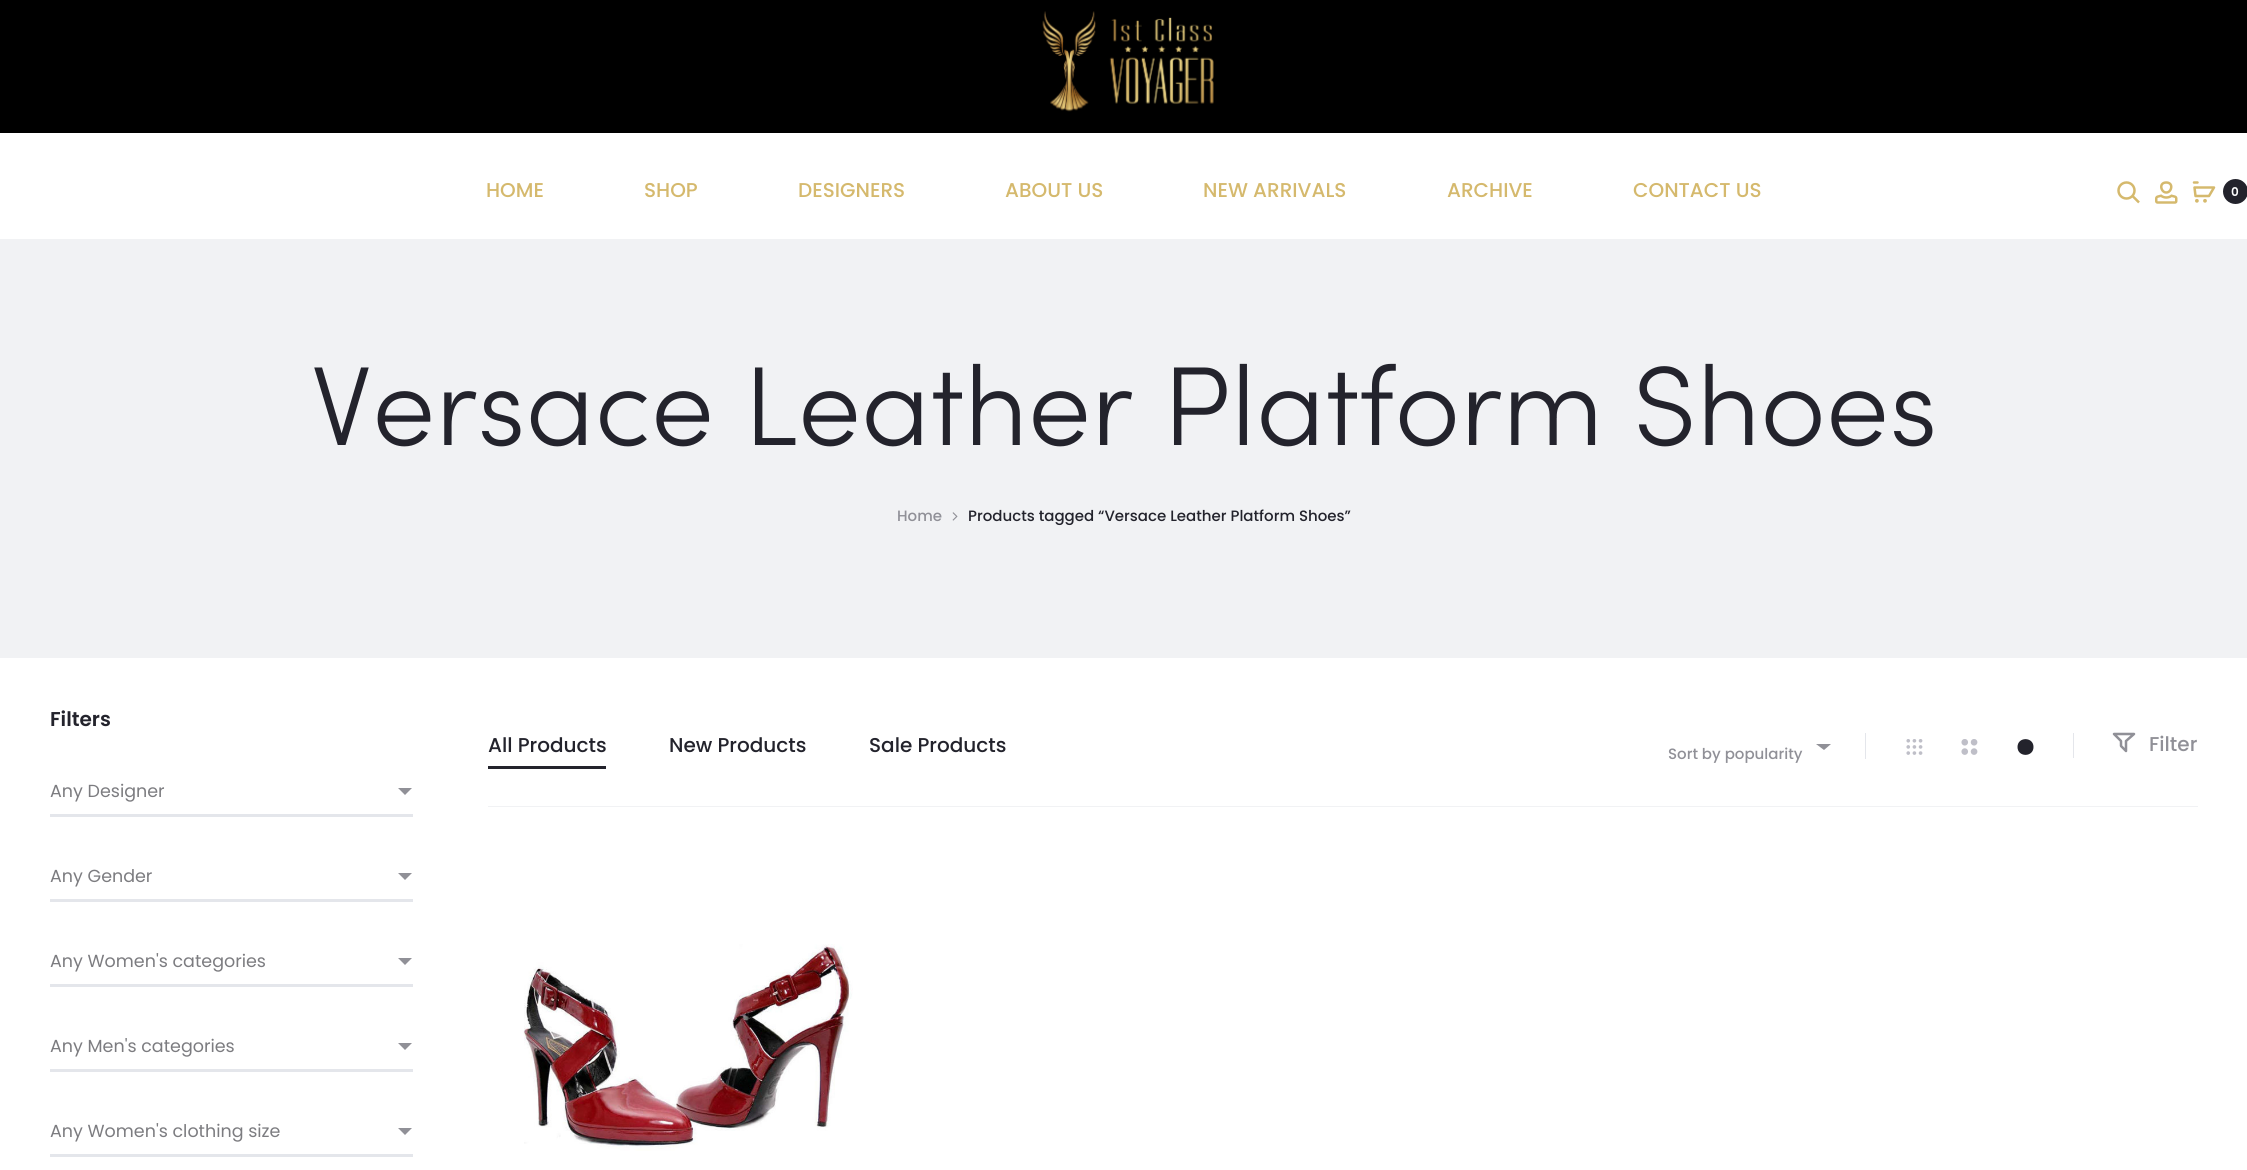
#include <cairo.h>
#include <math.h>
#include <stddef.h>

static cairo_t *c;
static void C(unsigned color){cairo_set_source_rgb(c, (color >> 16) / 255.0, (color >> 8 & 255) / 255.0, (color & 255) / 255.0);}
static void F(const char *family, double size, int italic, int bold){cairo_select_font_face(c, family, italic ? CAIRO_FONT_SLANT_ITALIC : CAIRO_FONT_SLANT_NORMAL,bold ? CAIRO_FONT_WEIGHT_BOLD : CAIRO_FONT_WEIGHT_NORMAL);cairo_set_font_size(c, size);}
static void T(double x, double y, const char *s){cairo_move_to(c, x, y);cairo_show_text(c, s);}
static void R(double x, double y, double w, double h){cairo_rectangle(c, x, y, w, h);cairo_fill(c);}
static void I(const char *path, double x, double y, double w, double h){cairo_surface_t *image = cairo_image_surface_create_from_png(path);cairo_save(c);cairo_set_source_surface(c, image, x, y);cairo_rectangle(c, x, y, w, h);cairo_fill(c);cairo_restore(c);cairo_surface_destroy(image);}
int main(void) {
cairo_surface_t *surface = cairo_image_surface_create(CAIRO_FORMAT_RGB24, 2247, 1170);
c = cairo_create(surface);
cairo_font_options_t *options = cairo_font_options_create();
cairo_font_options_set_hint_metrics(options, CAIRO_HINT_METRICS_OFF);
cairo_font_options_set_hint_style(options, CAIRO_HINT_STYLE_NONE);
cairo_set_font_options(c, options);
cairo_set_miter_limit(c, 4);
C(0xffffff);
cairo_paint(c);
C(0x000000);
R(0,0,2247,133);
I("1.png",1042,11,172,101);
F("Poppins Medium",20,0,0);
C(0xd5b96d);
T(486,197,"HOME");
T(644,197,"SHOP");
T(798,197,"DESIGNERS");
T(1005,197,"ABOUT US");
T(1203,197,"NEW ARRIVALS");
T(1447,197,"ARCHIVE");
T(1633,197,"CONTACT US");
cairo_new_path(c);
cairo_arc(c,2126.5,190.5,8,0,2 * M_PI);
cairo_set_line_width(c,2.5);
cairo_stroke(c);
cairo_new_path(c);
cairo_move_to(c,2132.5,196);
cairo_line_to(c,2139,202.5);
cairo_stroke(c);
I("2.png",2155,181,23,23);
cairo_new_path(c);
cairo_move_to(c,2194.5,187.5);
cairo_line_to(c,2195.5,196);
cairo_line_to(c,2209,196);
cairo_line_to(c,2214,187.5);
cairo_close_path(c);
cairo_set_line_join(c,CAIRO_LINE_JOIN_ROUND);
cairo_stroke(c);
cairo_arc(c,2196.9,200.8,1.9,0,2 * M_PI);
cairo_fill(c);
cairo_arc(c,2205,200.8,1.9,0,2 * M_PI);
cairo_fill(c);
cairo_new_path(c);
cairo_move_to(c,2194,182.5);
cairo_line_to(c,2197.5,182.5);
cairo_set_line_cap(c,CAIRO_LINE_CAP_ROUND);
cairo_set_line_join(c,CAIRO_LINE_JOIN_MITER);
cairo_stroke(c);
C(0x23232c);
cairo_arc(c,2235.5,191.5,12.5,0,2 * M_PI);
cairo_fill(c);
F("Poppins SemiBold",12,0,0);
C(0xffffff);
T(2231,196,"0");
C(0xf1f2f4);
R(0,239,2247,419);
F("Sofia Light",112.5,0,0);
C(0x23232c);
T(311,445,"Versace Leather Platform Shoes");
F("Poppins Medium",15,0,0);
C(0x909097);
T(897,521,"Home");
I("3.png",952,512,6,9);
C(0x23232c);
T(968,521,"Products tagged “Versace Leather Platform Shoes”");
F("Poppins SemiBold",20,0,0);
T(50,726,"Filters");
cairo_save(c);
cairo_rectangle(c,398,788,15,7);
cairo_clip(c);
C(0x909097);
cairo_new_path(c);
cairo_move_to(c,412.5,787.5);
cairo_line_to(c,405,795);
cairo_line_to(c,397.5,787.5);
cairo_close_path(c);
cairo_fill(c);
cairo_restore(c);
C(0xe4e6eb);
R(50,814,363,3);
F("Poppins",17.5,0,0);
C(0x7c7c80);
T(50,797,"Any Designer");
cairo_save(c);
cairo_rectangle(c,398,873,15,7);
cairo_clip(c);
C(0x909097);
cairo_new_path(c);
cairo_move_to(c,412.5,872.5);
cairo_line_to(c,405,880);
cairo_line_to(c,397.5,872.5);
cairo_close_path(c);
cairo_fill(c);
cairo_restore(c);
C(0xe4e6eb);
R(50,899,363,3);
C(0x7c7c80);
T(50,882,"Any Gender");
cairo_save(c);
cairo_rectangle(c,398,958,15,7);
cairo_clip(c);
C(0x909097);
cairo_new_path(c);
cairo_move_to(c,412.5,957.5);
cairo_line_to(c,405,965);
cairo_line_to(c,397.5,957.5);
cairo_close_path(c);
cairo_fill(c);
cairo_restore(c);
C(0xe4e6eb);
R(50,984,363,3);
C(0x7c7c80);
T(50,967,"Any Women's categories");
cairo_save(c);
cairo_rectangle(c,398,1043,15,7);
cairo_clip(c);
C(0x909097);
cairo_new_path(c);
cairo_move_to(c,412.5,1042.5);
cairo_line_to(c,405,1050);
cairo_line_to(c,397.5,1042.5);
cairo_close_path(c);
cairo_fill(c);
cairo_restore(c);
C(0xe4e6eb);
R(50,1069,363,3);
C(0x7c7c80);
T(50,1052,"Any Men's categories");
cairo_save(c);
cairo_rectangle(c,398,1128,15,7);
cairo_clip(c);
C(0x909097);
cairo_new_path(c);
cairo_move_to(c,412.5,1127.5);
cairo_line_to(c,405,1135);
cairo_line_to(c,397.5,1127.5);
cairo_close_path(c);
cairo_fill(c);
cairo_restore(c);
C(0xe4e6eb);
R(50,1154,363,3);
C(0x7c7c80);
T(50,1137,"Any Women's clothing size");
C(0xf1f2f4);
R(488,806,1710,1);
F("Poppins Medium",20,0,0);
C(0x23232c);
T(488,752,"All Products");
R(488,766,118,3);
T(669,752,"New Products");
T(869,752,"Sale Products");
C(0xe4e6eb);
R(2073,733,1,25);
I("4.png",1906,739,17,16);
I("5.png",1961,739,17,16);
C(0x23232c);
cairo_new_path(c);
cairo_move_to(c,2033.5,747);
cairo_curve_to(c,2033.5,757.5,2017.5,757.5,2017.5,747);
cairo_curve_to(c,2017.5,736.5,2033.5,736.5,2033.5,747);
cairo_close_path(c);
cairo_fill(c);
cairo_new_path(c);
cairo_move_to(c,2126,741);
cairo_line_to(c,2126,751);
cairo_line_to(c,2121,746);
cairo_line_to(c,2121,741);
cairo_line_to(c,2114,734);
cairo_line_to(c,2134,734);
cairo_close_path(c);
C(0x909097);
cairo_set_line_cap(c,CAIRO_LINE_CAP_BUTT);
cairo_set_line_join(c,CAIRO_LINE_JOIN_ROUND);
cairo_stroke(c);
T(2149,751,"Filter");
C(0xe4e6eb);
R(1865,733,1,26);
F("Poppins Medium",15,0,0);
C(0x909097);
T(1668,759,"Sort by popularity");
cairo_new_path(c);
cairo_move_to(c,1816,744);
cairo_line_to(c,1831,744);
cairo_line_to(c,1824,750);
cairo_close_path(c);
cairo_fill(c);
I("6.png",523,944,330,207);
cairo_surface_write_to_png(surface, "o.png");
cairo_font_options_destroy(options);
cairo_destroy(c);
cairo_surface_destroy(surface);
return 0;
}
